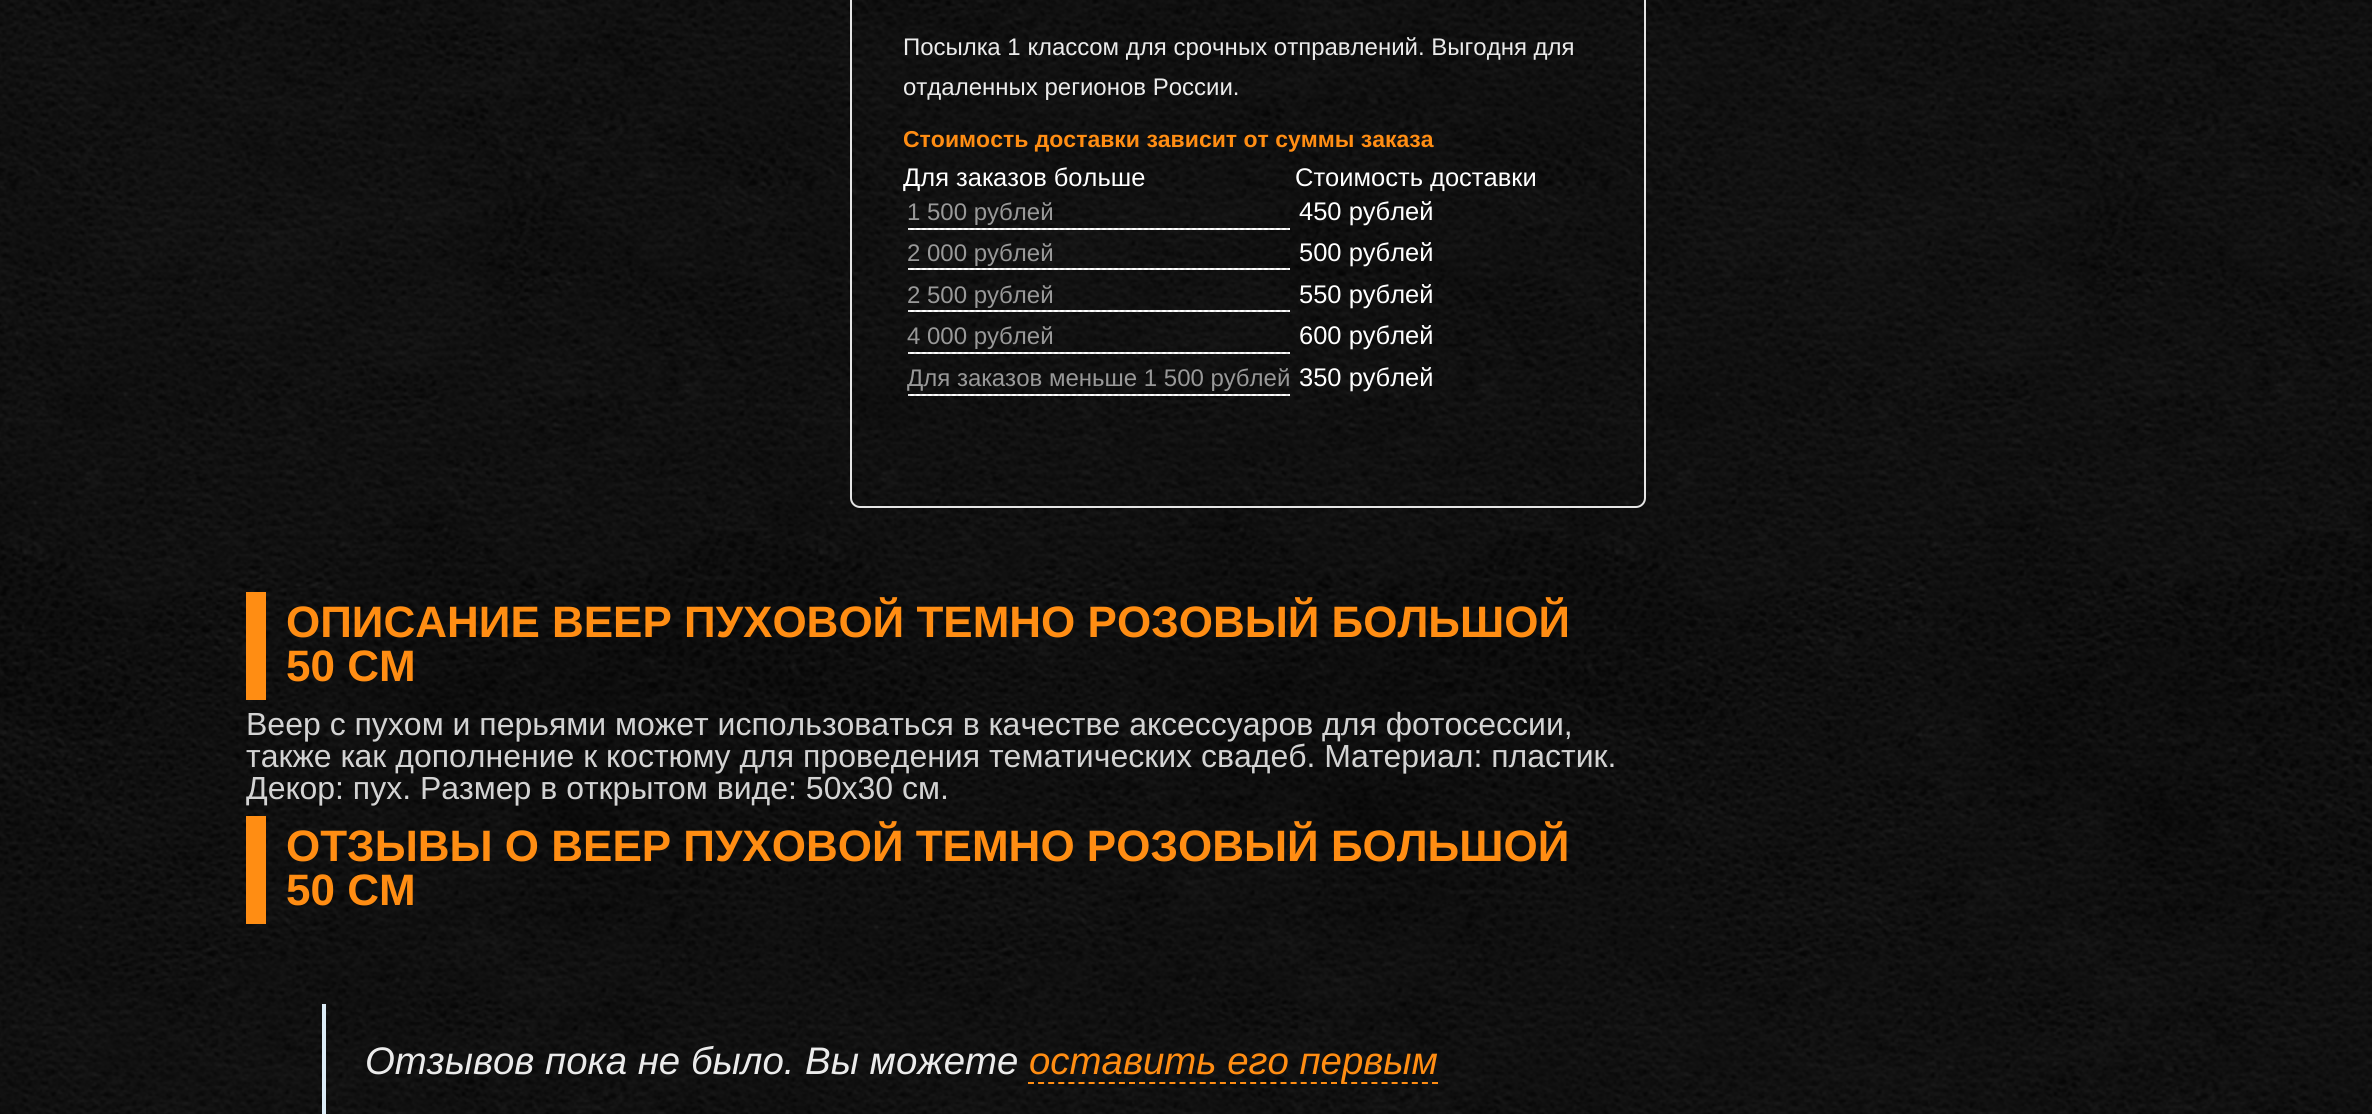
#include <cairo.h>
#include <math.h>
#include <stddef.h>

static cairo_t *c;
static void C(unsigned color){cairo_set_source_rgb(c, (color >> 16) / 255.0, (color >> 8 & 255) / 255.0, (color & 255) / 255.0);}
static void F(const char *family, double size, int italic, int bold){cairo_select_font_face(c, family, italic ? CAIRO_FONT_SLANT_ITALIC : CAIRO_FONT_SLANT_NORMAL,bold ? CAIRO_FONT_WEIGHT_BOLD : CAIRO_FONT_WEIGHT_NORMAL);cairo_set_font_size(c, size);}
static void T(double x, double y, const char *s){cairo_move_to(c, x, y);cairo_show_text(c, s);}
static void R(double x, double y, double w, double h){cairo_rectangle(c, x, y, w, h);cairo_fill(c);}
static void Q(double x, double y, double w, double h, double r){cairo_new_sub_path(c);cairo_arc(c, x + w - r, y + h - r, r, 0, M_PI / 2);cairo_arc(c, x + r, y + h - r, r, M_PI / 2, M_PI);cairo_arc(c, x + r, y + r, r, M_PI, 1.5 * M_PI);cairo_arc(c, x + w - r, y + r, r, 1.5 * M_PI, 2 * M_PI);cairo_close_path(c);}
static void I(const char *path, double x, double y, double w, double h){cairo_surface_t *image = cairo_image_surface_create_from_png(path);cairo_save(c);cairo_set_source_surface(c, image, x, y);cairo_rectangle(c, x, y, w, h);cairo_fill(c);cairo_restore(c);cairo_surface_destroy(image);}
int main(void) {
cairo_surface_t *surface = cairo_image_surface_create(CAIRO_FORMAT_RGB24, 2372, 1114);
c = cairo_create(surface);
cairo_font_options_t *options = cairo_font_options_create();
cairo_font_options_set_hint_metrics(options, CAIRO_HINT_METRICS_OFF);
cairo_font_options_set_hint_style(options, CAIRO_HINT_STYLE_NONE);
cairo_set_font_options(c, options);
cairo_set_miter_limit(c, 4);
C(0xffffff);
cairo_paint(c);
I("1.png",0,0,2372,1114);
Q(851,-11,794,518,9);
C(0xe5e5e5);
cairo_stroke(c);
F("Liberation Sans",24,0,0);
C(0xebebeb);
T(903,55,"Посылка 1 классом для срочных отправлений. Выгодня для");
T(903,95,"отдаленных регионов России.");
F("Liberation Sans",23,0,1);
C(0xff8d13);
T(903,147,"Стоимость доставки зависит от суммы заказа");
F("Liberation Sans",25.5,0,0);
C(0xffffff);
T(903,186,"Для заказов больше");
T(1295,186,"Стоимость доставки");
I("2.png",908,228,382,2);
F("Liberation Sans",24,0,0);
C(0x999999);
T(907,220,"1 500 рублей");
F("Liberation Sans",25.5,0,0);
C(0xffffff);
T(1299,220,"450 рублей");
I("2.png",908,268,382,2);
F("Liberation Sans",24,0,0);
C(0x999999);
T(907,261,"2 000 рублей");
F("Liberation Sans",25.5,0,0);
C(0xffffff);
T(1299,261,"500 рублей");
I("2.png",908,310,382,2);
F("Liberation Sans",24,0,0);
C(0x999999);
T(907,303,"2 500 рублей");
F("Liberation Sans",25.5,0,0);
C(0xffffff);
T(1299,303,"550 рублей");
I("2.png",908,352,382,2);
F("Liberation Sans",24,0,0);
C(0x999999);
T(907,344,"4 000 рублей");
F("Liberation Sans",25.5,0,0);
C(0xffffff);
T(1299,344,"600 рублей");
I("2.png",908,394,382,2);
F("Liberation Sans",24,0,0);
C(0x999999);
T(907,386,"Для заказов меньше 1 500 рублей");
F("Liberation Sans",25.5,0,0);
C(0xffffff);
T(1299,386,"350 рублей");
C(0xff8d13);
R(246,592,20,108);
F("Liberation Sans",44,0,1);
T(286,637,"ОПИСАНИЕ ВЕЕР ПУХОВОЙ ТЕМНО РОЗОВЫЙ БОЛЬШОЙ");
T(286,681,"50 СМ");
F("Liberation Sans",32,0,0);
C(0xd3d3d3);
T(246,735,"Веер с пухом и перьями может использоваться в качестве аксессуаров для фотосессии,");
T(246,767,"также как дополнение к костюму для проведения тематических свадеб. Материал: пластик.");
T(246,799,"Декор: пух. Размер в открытом виде: 50х30 см.");
C(0xff8d13);
R(246,816,20,108);
F("Liberation Sans",44,0,1);
T(286,861,"ОТЗЫВЫ О ВЕЕР ПУХОВОЙ ТЕМНО РОЗОВЫЙ БОЛЬШОЙ");
T(286,905,"50 СМ");
C(0xdcecf7);
R(322,1004,4,110);
F("Liberation Sans",38.4,1,0);
C(0xebebeb);
T(365,1074,"Отзывов пока не было. Вы можете");
C(0xff8d13);
T(1029,1074,"оставить его первым");
cairo_new_path(c);
cairo_move_to(c,1028,1083);
cairo_line_to(c,1438,1083);
cairo_set_dash(c,(double[]){6,4.1},2,0);
cairo_stroke(c);
cairo_surface_write_to_png(surface, "o.png");
cairo_font_options_destroy(options);
cairo_destroy(c);
cairo_surface_destroy(surface);
return 0;
}
